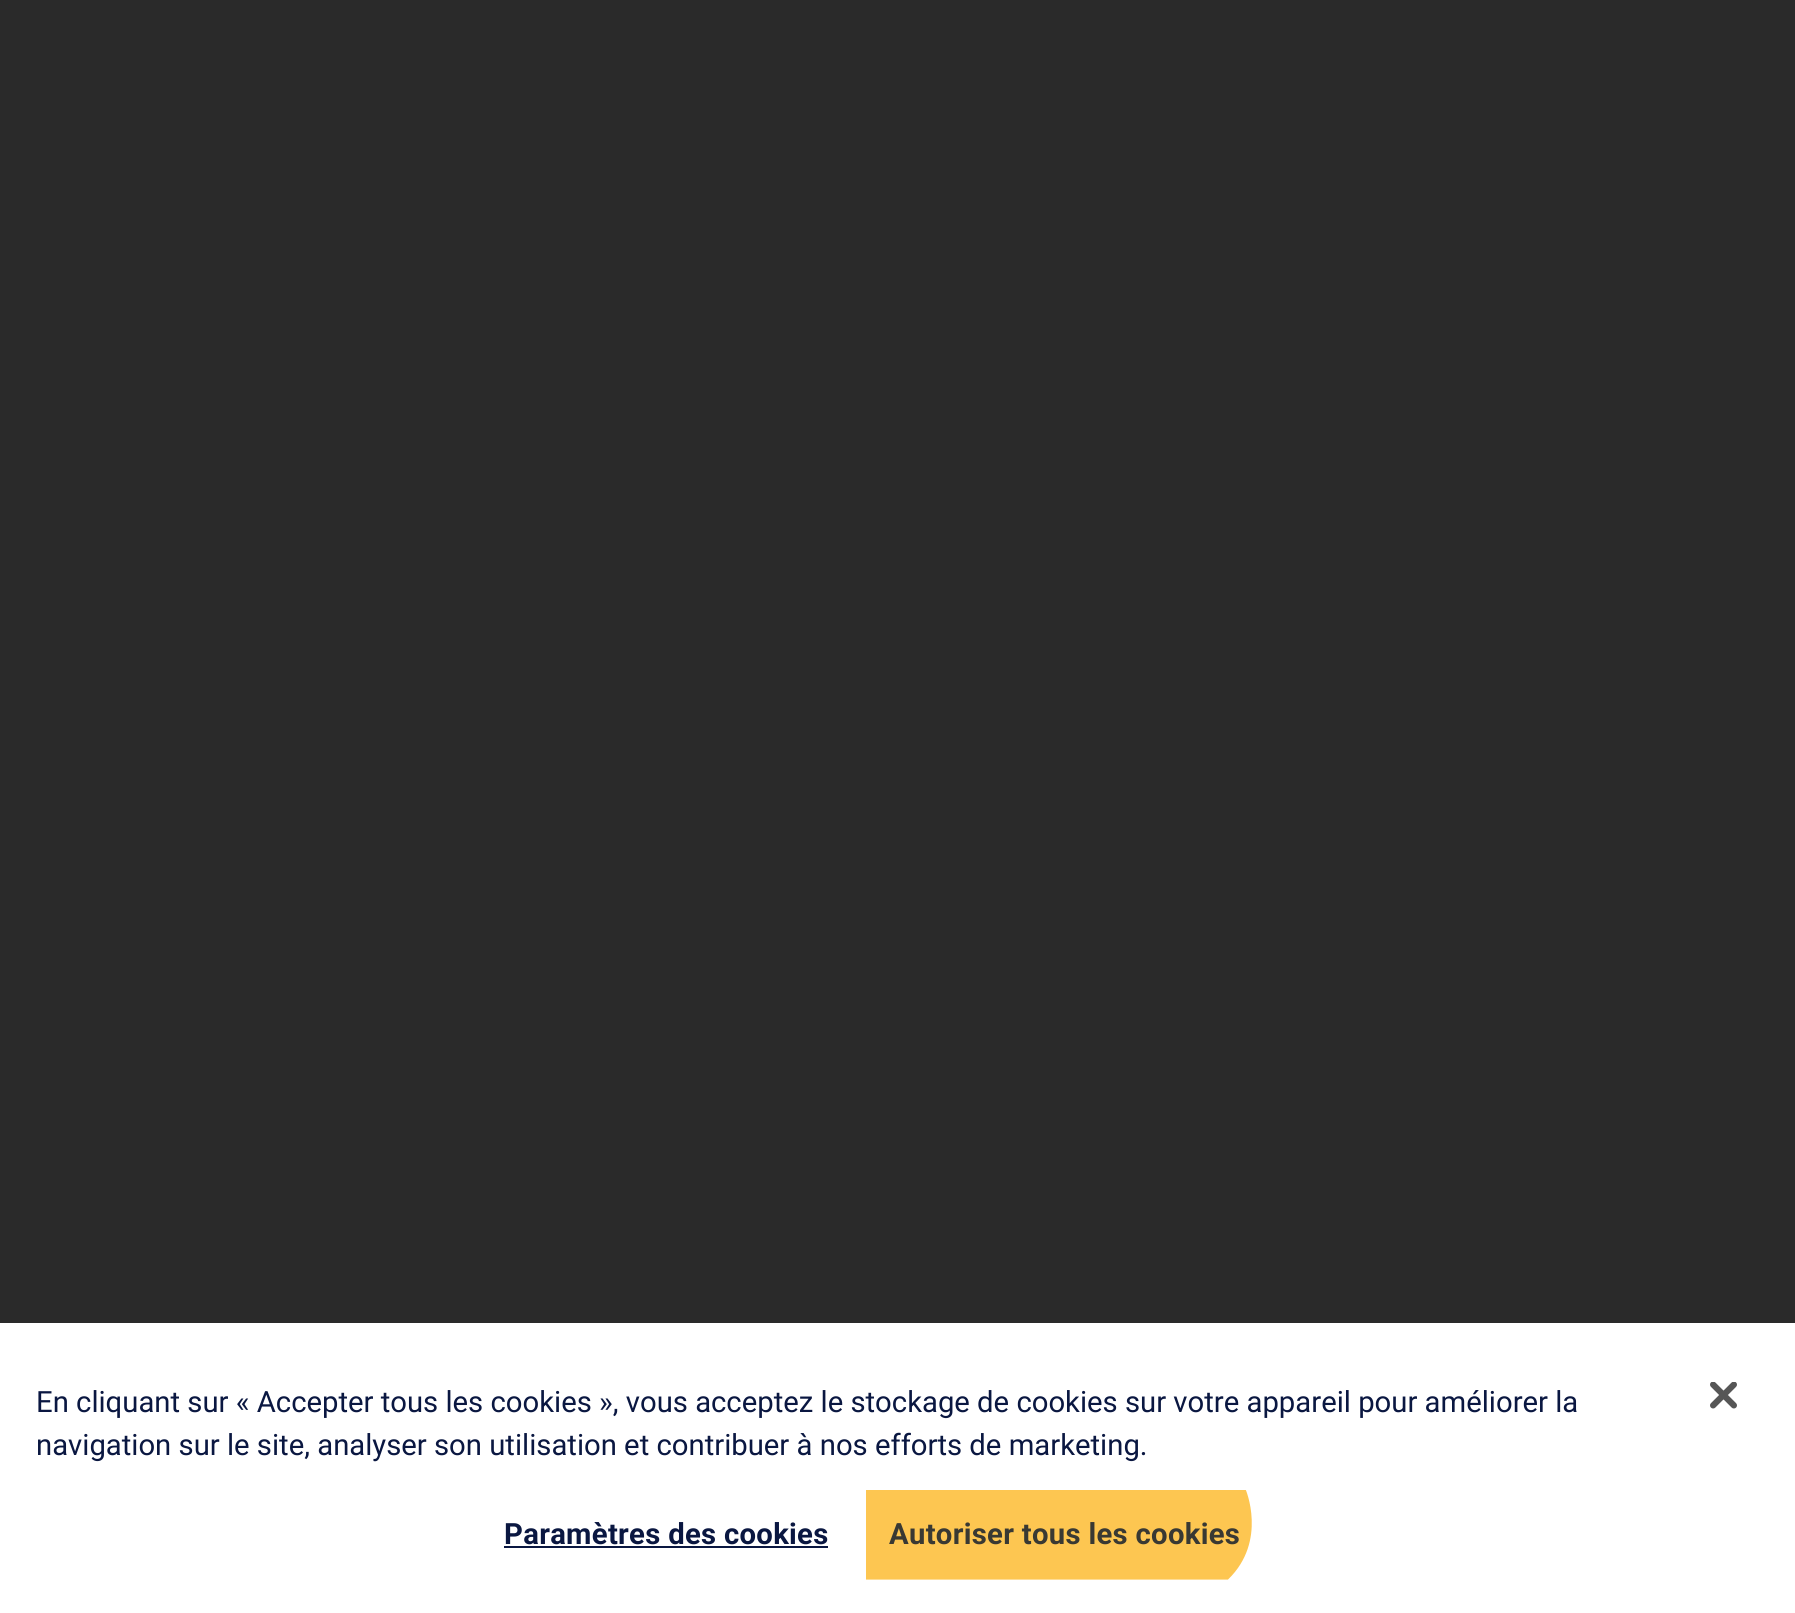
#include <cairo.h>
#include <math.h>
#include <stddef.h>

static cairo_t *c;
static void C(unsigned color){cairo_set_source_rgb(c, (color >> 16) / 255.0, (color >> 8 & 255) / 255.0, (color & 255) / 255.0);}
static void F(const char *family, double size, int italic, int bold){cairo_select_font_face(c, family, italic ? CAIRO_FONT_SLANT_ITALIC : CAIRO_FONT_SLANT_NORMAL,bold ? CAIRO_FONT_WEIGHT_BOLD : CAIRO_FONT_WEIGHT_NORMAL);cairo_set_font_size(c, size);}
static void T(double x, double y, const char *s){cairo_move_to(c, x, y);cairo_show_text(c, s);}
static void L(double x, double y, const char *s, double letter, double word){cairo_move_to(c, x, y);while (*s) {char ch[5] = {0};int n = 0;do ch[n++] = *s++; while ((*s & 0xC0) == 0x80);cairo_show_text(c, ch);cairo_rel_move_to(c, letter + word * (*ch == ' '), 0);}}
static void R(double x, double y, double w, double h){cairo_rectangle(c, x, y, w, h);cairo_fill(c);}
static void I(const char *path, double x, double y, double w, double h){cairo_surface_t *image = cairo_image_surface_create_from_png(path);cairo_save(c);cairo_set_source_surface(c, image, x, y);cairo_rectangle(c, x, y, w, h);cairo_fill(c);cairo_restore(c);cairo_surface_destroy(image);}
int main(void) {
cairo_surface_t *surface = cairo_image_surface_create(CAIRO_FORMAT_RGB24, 1795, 1613);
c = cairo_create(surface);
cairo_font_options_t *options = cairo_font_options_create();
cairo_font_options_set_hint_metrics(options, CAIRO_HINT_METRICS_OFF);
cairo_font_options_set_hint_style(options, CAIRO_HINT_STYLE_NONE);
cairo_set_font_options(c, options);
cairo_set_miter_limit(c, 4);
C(0x2a2a2a);
cairo_paint(c);
C(0xffffff);
R(0,1323,1795,290);
F("Roboto",29.27,0,0);
C(0x0a1741);
T(36,1412,"En cliquant sur « Accepter tous les cookies », vous acceptez le stockage de cookies sur votre appareil pour améliorer la");
T(36,1455,"navigation sur le site, analyser son utilisation et contribuer à nos efforts de marketing.");
F("Roboto",29.27,0,1);
L(504,1544,"Paramètres des cookies",.3,0);
R(504,1546,324,2);
cairo_save(c);
cairo_rectangle(c,866,1490,396,90);
cairo_clip(c);
C(0xfdc651);
cairo_new_path(c);
cairo_move_to(c,56,1490);
cairo_line_to(c,1245,1490);
cairo_curve_to(c,1245,1490,1267,1541,1227,1579);
cairo_line_to(c,56,1579);
cairo_close_path(c);
cairo_fill(c);
cairo_new_path(c);
cairo_move_to(c,56.5,1489.5);
cairo_line_to(c,1244.5,1489.5);
cairo_curve_to(c,1244.5,1489.5,1266.5,1540.5,1227.5,1578.5);
cairo_line_to(c,56.5,1578.5);
cairo_close_path(c);
cairo_set_line_width(c,2.2);
cairo_stroke(c);
cairo_restore(c);
C(0x393933);
L(889,1544,"Autoriser tous les cookies",.3,0);
I("1.png",1710,1382,27,27);
cairo_surface_write_to_png(surface, "o.png");
cairo_font_options_destroy(options);
cairo_destroy(c);
cairo_surface_destroy(surface);
return 0;
}
